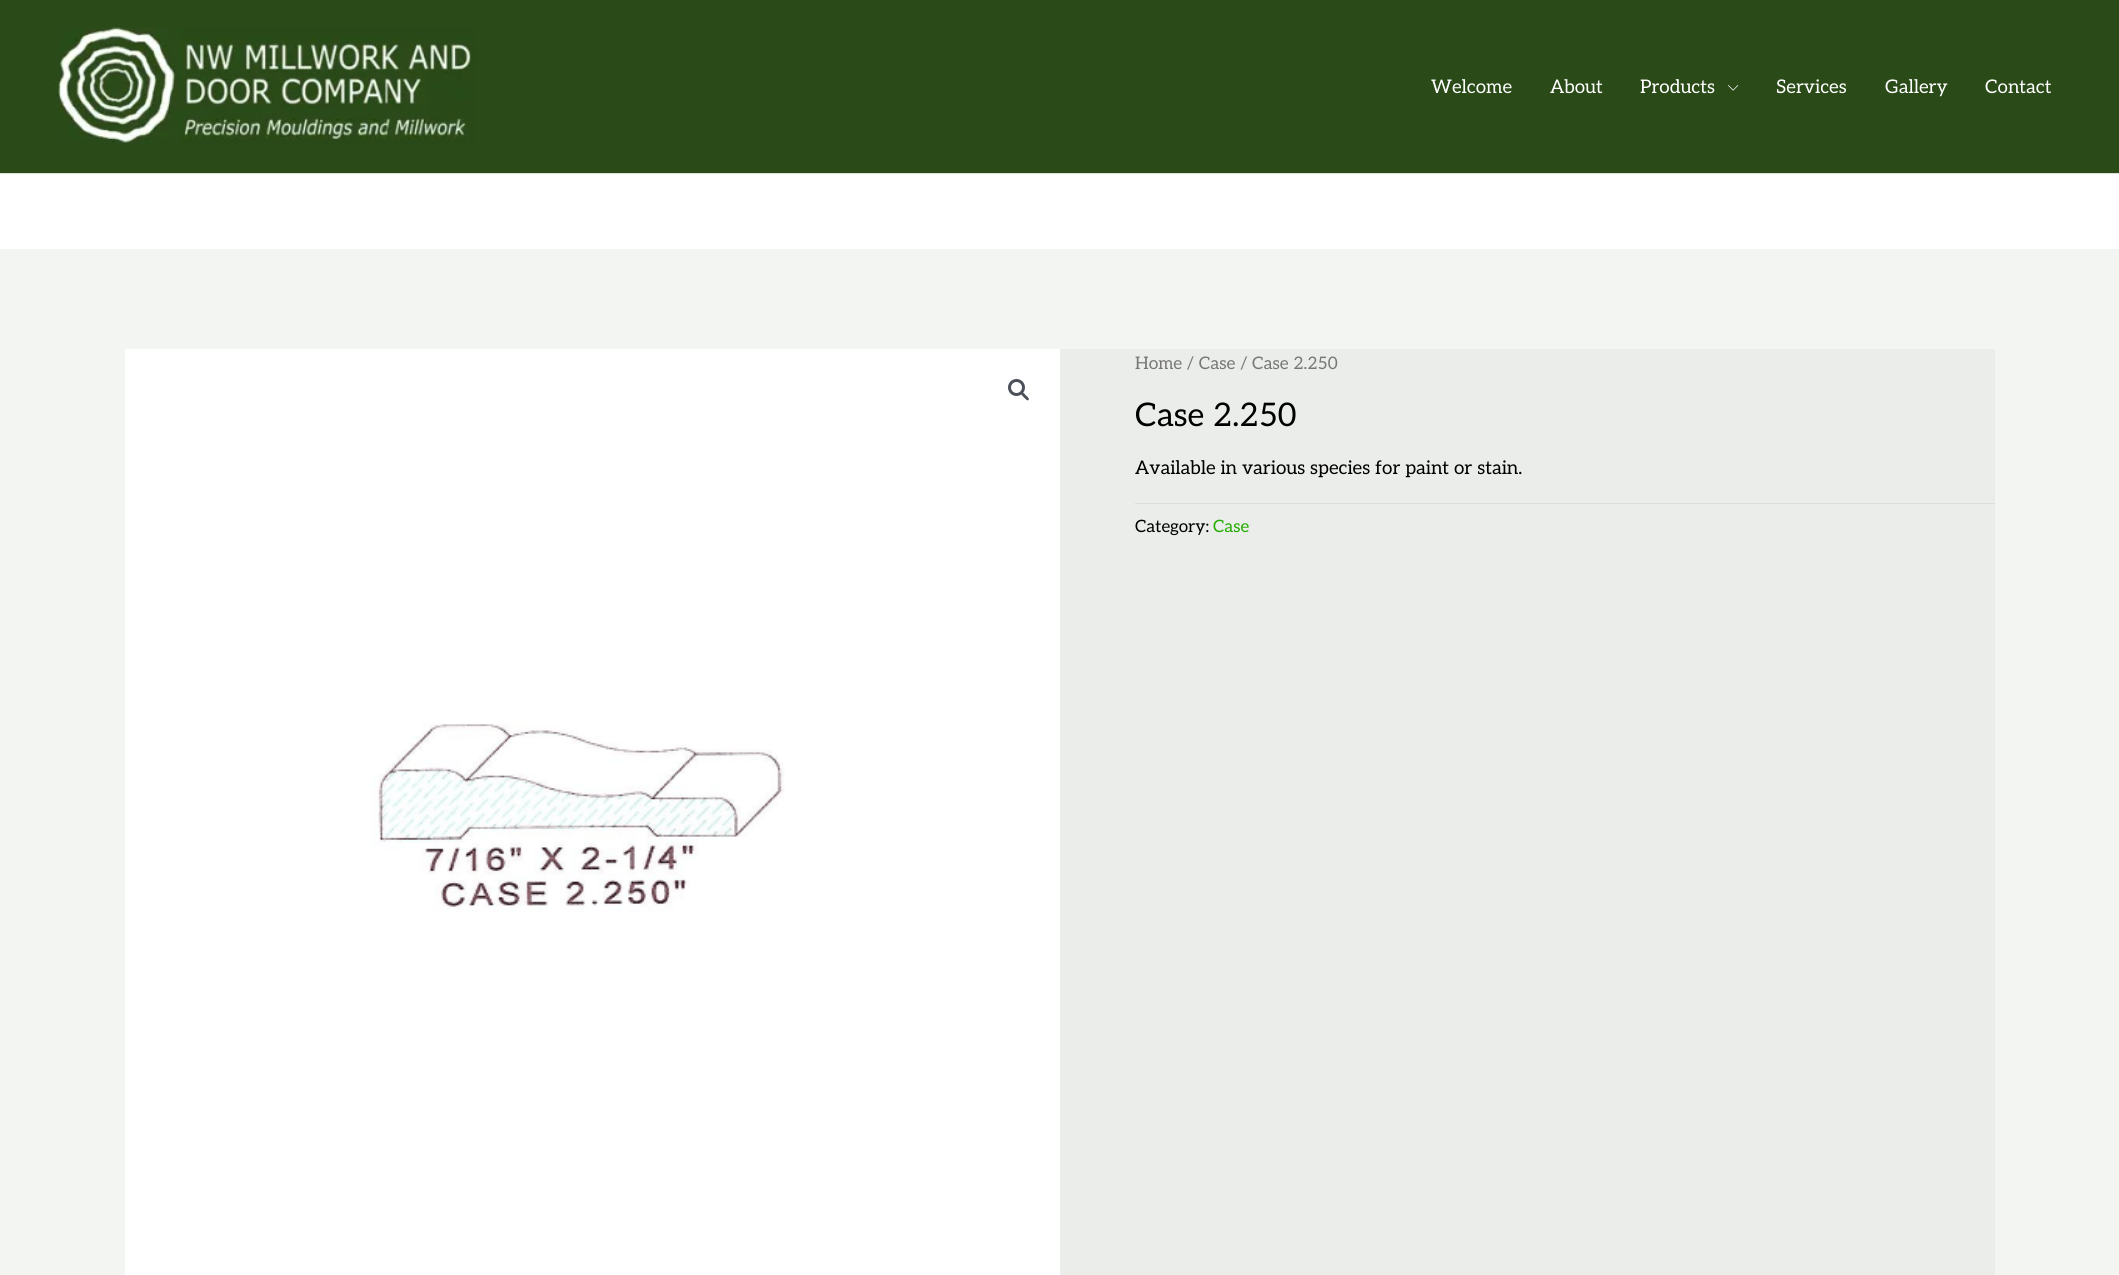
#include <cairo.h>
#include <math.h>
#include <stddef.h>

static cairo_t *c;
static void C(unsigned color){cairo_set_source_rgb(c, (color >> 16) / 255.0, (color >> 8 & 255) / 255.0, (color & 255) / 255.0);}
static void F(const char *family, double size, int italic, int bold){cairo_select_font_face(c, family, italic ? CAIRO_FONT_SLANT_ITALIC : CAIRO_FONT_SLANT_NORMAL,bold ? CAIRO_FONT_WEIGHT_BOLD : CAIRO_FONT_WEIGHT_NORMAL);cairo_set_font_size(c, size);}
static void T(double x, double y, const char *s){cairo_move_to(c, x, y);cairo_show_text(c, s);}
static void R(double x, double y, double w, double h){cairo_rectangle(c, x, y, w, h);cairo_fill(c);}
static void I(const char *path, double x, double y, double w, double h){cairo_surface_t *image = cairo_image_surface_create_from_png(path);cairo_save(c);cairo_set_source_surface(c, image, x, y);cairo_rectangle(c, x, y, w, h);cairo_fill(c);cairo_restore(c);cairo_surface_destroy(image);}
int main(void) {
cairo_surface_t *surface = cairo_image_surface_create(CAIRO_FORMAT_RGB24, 2119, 1275);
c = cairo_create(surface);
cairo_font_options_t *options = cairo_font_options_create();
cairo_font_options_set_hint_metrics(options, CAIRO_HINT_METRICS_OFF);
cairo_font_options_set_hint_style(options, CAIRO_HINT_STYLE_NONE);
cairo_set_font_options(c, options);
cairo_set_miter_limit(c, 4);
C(0xffffff);
cairo_paint(c);
C(0x2a4a18);
R(0,0,2119,173);
C(0xdddddd);
R(0,173,2119,1);
I("1.png",55,27,420,117);
F("Aleo",18.75,0,0);
C(0xffffff);
T(1431,93,"Welcome");
T(1550,93,"About");
T(1640,93,"Products");
I("2.png",1728,85,11,6);
T(1776,93,"Services");
T(1885,93,"Gallery");
T(1985,93,"Contact");
C(0xf3f5f2);
R(0,249,2119,1026);
C(0xeaede9);
R(1060,349,935,926);
I("3.png",125,349,935,926);
cairo_arc(c,1016.5,387.5,7,0,2 * M_PI);
C(0x4b4f58);
cairo_set_line_width(c,3);
cairo_stroke(c);
cairo_new_path(c);
cairo_move_to(c,1021.5,393);
cairo_curve_to(c,1023,391.5,1025,394.5,1026,395.5);
cairo_curve_to(c,1026.5,396,1030,398.5,1028.5,400);
cairo_curve_to(c,1027,401.5,1025,398,1024,397.5);
cairo_curve_to(c,1023.5,396.5,1020,394.5,1021.5,393);
cairo_close_path(c);
cairo_fill(c);
F("Aleo",17.25,0,0);
C(0x777777);
T(1135,369,"Home / Case / Case 2.250");
F("Aleo",32.5,0,0);
C(0x000000);
T(1135,426,"Case 2.250");
F("Aleo",18.75,0,0);
T(1135,474,"Available in various species for paint or stain.");
C(0xdddddd);
R(1135,503,860,1);
F("Aleo",17,0,0);
C(0x000000);
T(1135,532,"Category:");
C(0x22ad00);
T(1213,532,"Case");
cairo_surface_write_to_png(surface, "o.png");
cairo_font_options_destroy(options);
cairo_destroy(c);
cairo_surface_destroy(surface);
return 0;
}
